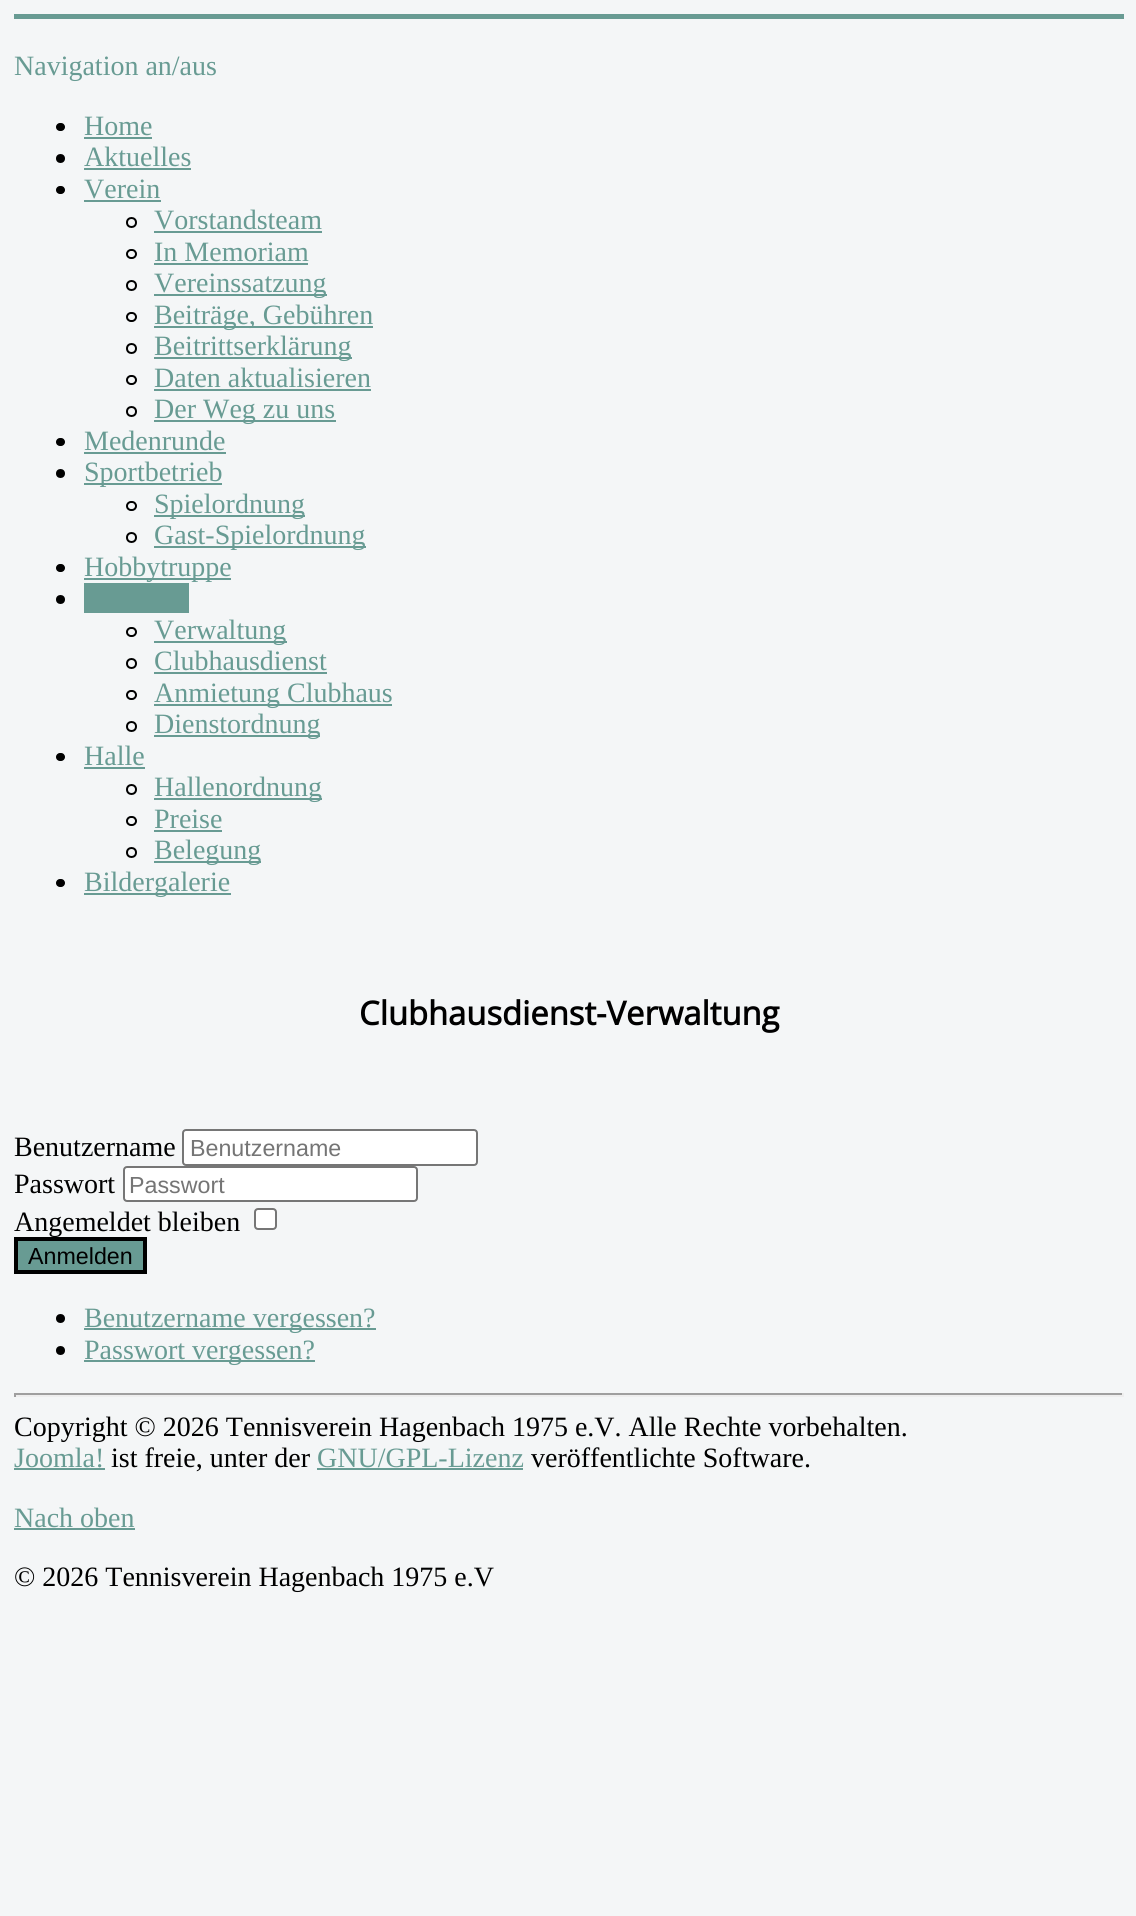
#include <cairo.h>
#include <math.h>
#include <stddef.h>

static cairo_t *c;
static void C(unsigned color){cairo_set_source_rgb(c, (color >> 16) / 255.0, (color >> 8 & 255) / 255.0, (color & 255) / 255.0);}
static void F(const char *family, double size, int italic, int bold){cairo_select_font_face(c, family, italic ? CAIRO_FONT_SLANT_ITALIC : CAIRO_FONT_SLANT_NORMAL,bold ? CAIRO_FONT_WEIGHT_BOLD : CAIRO_FONT_WEIGHT_NORMAL);cairo_set_font_size(c, size);}
static void T(double x, double y, const char *s){cairo_move_to(c, x, y);cairo_show_text(c, s);}
static void R(double x, double y, double w, double h){cairo_rectangle(c, x, y, w, h);cairo_fill(c);}
static void Q(double x, double y, double w, double h, double r){cairo_new_sub_path(c);cairo_arc(c, x + w - r, y + h - r, r, 0, M_PI / 2);cairo_arc(c, x + r, y + h - r, r, M_PI / 2, M_PI);cairo_arc(c, x + r, y + r, r, M_PI, 1.5 * M_PI);cairo_arc(c, x + w - r, y + r, r, 1.5 * M_PI, 2 * M_PI);cairo_close_path(c);}
int main(void) {
cairo_surface_t *surface = cairo_image_surface_create(CAIRO_FORMAT_RGB24, 1136, 1916);
c = cairo_create(surface);
cairo_font_options_t *options = cairo_font_options_create();
cairo_font_options_set_hint_metrics(options, CAIRO_HINT_METRICS_OFF);
cairo_font_options_set_hint_style(options, CAIRO_HINT_STYLE_NONE);
cairo_set_font_options(c, options);
cairo_set_miter_limit(c, 4);
C(0xf4f6f7);
cairo_paint(c);
C(0x689b93);
R(14,14,1110,5);
F("Liberation Serif",28,0,0);
T(14,75,"Navigation an/aus");
C(0x000000);
Q(56,123,9,8,4);
cairo_fill(c);
C(0x689b93);
T(84,135,"Home");
R(84,137,68,2);
C(0x000000);
cairo_new_path(c);
cairo_arc(c,60.5,158.5,4.5,0,2 * M_PI);
cairo_fill(c);
C(0x689b93);
T(84,166,"Aktuelles");
R(84,168,107,2);
C(0x000000);
Q(56,186,9,8,4);
cairo_fill(c);
C(0x689b93);
T(84,198,"Verein");
R(84,200,77,2);
cairo_new_path(c);
cairo_arc(c,131.5,222.5,4.5,0,2 * M_PI);
C(0x000000);
cairo_stroke(c);
C(0x689b93);
T(154,229,"Vorstandsteam");
R(154,231,168,2);
Q(127,250,9,8,4);
C(0x000000);
cairo_stroke(c);
C(0x689b93);
T(154,261,"In Memoriam");
R(154,263,154,2);
cairo_new_path(c);
cairo_arc(c,131.5,285.5,4.5,0,2 * M_PI);
C(0x000000);
cairo_stroke(c);
C(0x689b93);
R(154,294,173,2);
T(154,292,"Vereinssatzung");
Q(127,313,9,8,4);
C(0x000000);
cairo_stroke(c);
C(0x689b93);
R(154,326,219,2);
T(154,324,"Beiträge, Gebühren");
cairo_new_path(c);
cairo_arc(c,131.5,348.5,4.5,0,2 * M_PI);
C(0x000000);
cairo_stroke(c);
C(0x689b93);
R(154,357,198,2);
T(154,355,"Beitrittserklärung");
Q(127,376,9,8,4);
C(0x000000);
cairo_stroke(c);
C(0x689b93);
T(154,387,"Daten aktualisieren");
R(154,389,217,2);
cairo_new_path(c);
cairo_arc(c,131.5,411.5,4.5,0,2 * M_PI);
C(0x000000);
cairo_stroke(c);
C(0x689b93);
R(154,420,182,2);
T(154,418,"Der Weg zu uns");
C(0x000000);
Q(56,438,9,8,4);
cairo_fill(c);
C(0x689b93);
T(84,450,"Medenrunde");
R(84,452,142,2);
C(0x000000);
cairo_new_path(c);
cairo_arc(c,60.5,473.5,4.5,0,2 * M_PI);
cairo_fill(c);
C(0x689b93);
R(84,483,138,2);
T(84,481,"Sportbetrieb");
Q(127,502,9,8,4);
C(0x000000);
cairo_stroke(c);
C(0x689b93);
R(154,515,151,2);
T(154,513,"Spielordnung");
cairo_new_path(c);
cairo_arc(c,131.5,537.5,4.5,0,2 * M_PI);
C(0x000000);
cairo_stroke(c);
C(0x689b93);
R(154,546,212,2);
T(154,544,"Gast-Spielordnung");
C(0x000000);
Q(56,564,9,8,4);
cairo_fill(c);
C(0x689b93);
R(84,578,147,2);
T(84,576,"Hobbytruppe");
C(0x000000);
cairo_new_path(c);
cairo_arc(c,60.5,599.5,4.5,0,2 * M_PI);
cairo_fill(c);
C(0x689b93);
R(84,583,105,30);
Q(127,628,9,8,4);
C(0x000000);
cairo_stroke(c);
C(0x689b93);
R(154,641,133,2);
T(154,639,"Verwaltung");
cairo_new_path(c);
cairo_arc(c,131.5,663.5,4.5,0,2 * M_PI);
C(0x000000);
cairo_stroke(c);
C(0x689b93);
T(154,670,"Clubhausdienst");
R(154,672,173,2);
Q(127,691,9,8,4);
C(0x000000);
cairo_stroke(c);
C(0x689b93);
R(154,704,238,2);
T(154,702,"Anmietung Clubhaus");
cairo_new_path(c);
cairo_arc(c,131.5,726.5,4.5,0,2 * M_PI);
C(0x000000);
cairo_stroke(c);
C(0x689b93);
R(154,735,166,2);
T(154,733,"Dienstordnung");
C(0x000000);
Q(56,753,9,8,4);
cairo_fill(c);
C(0x689b93);
T(84,765,"Halle");
R(84,767,61,2);
cairo_new_path(c);
cairo_arc(c,131.5,789.5,4.5,0,2 * M_PI);
C(0x000000);
cairo_stroke(c);
C(0x689b93);
R(154,798,168,2);
T(154,796,"Hallenordnung");
Q(127,817,9,8,4);
C(0x000000);
cairo_stroke(c);
C(0x689b93);
T(154,828,"Preise");
R(154,830,68,2);
cairo_new_path(c);
cairo_arc(c,131.5,852.5,4.5,0,2 * M_PI);
C(0x000000);
cairo_stroke(c);
C(0x689b93);
R(154,861,107,2);
T(154,859,"Belegung");
C(0x000000);
Q(56,879,9,8,4);
cairo_fill(c);
C(0x689b93);
R(84,893,147,2);
T(84,891,"Bildergalerie");
F("Open Sans",32.75,0,1);
C(0x000000);
T(359,1025,"Clubhausdienst-Verwaltung");
F("Liberation Serif",28,0,0);
T(14,1156,"Benutzername");
C(0xffffff);
Q(183,1130,294,35,3);
cairo_fill_preserve(c);
C(0x767676);
cairo_stroke(c);
F("Liberation Sans",23.25,0,0);
C(0x757575);
T(190,1156,"Benutzername");
F("Liberation Serif",28,0,0);
C(0x000000);
T(14,1193,"Passwort");
C(0xffffff);
Q(124,1167,293,34,3);
cairo_fill_preserve(c);
C(0x767676);
cairo_stroke(c);
F("Liberation Sans",23.25,0,0);
C(0x757575);
T(129,1193,"Passwort");
F("Liberation Serif",28,0,0);
C(0x000000);
T(14,1231,"Angemeldet bleiben");
C(0xffffff);
Q(255,1209,21,20,3);
cairo_fill_preserve(c);
C(0x767676);
cairo_stroke(c);
C(0x689b93);
cairo_rectangle(c,16,1239,129,33);
cairo_fill_preserve(c);
C(0x000000);
cairo_set_line_width(c,4);
cairo_stroke(c);
F("Liberation Sans",23.25,0,0);
T(28,1264,"Anmelden");
cairo_new_path(c);
cairo_arc(c,60.5,1318.5,4.5,0,2 * M_PI);
cairo_fill(c);
C(0x689b93);
R(84,1328,292,2);
F("Liberation Serif",28,0,0);
T(84,1327,"Benutzername vergessen?");
C(0x000000);
cairo_new_path(c);
cairo_arc(c,60.5,1350.5,4.5,0,2 * M_PI);
cairo_fill(c);
C(0x689b93);
R(84,1360,231,2);
T(84,1359,"Passwort vergessen?");
C(0x9f9f9f);
R(14,1393,1110,2);
C(0xeeeeee);
R(1122,1393,2,4);
R(14,1395,1110,2);
C(0x9f9f9f);
R(14,1393,2,4);
C(0x000000);
T(14,1436,"Copyright © 2026 Tennisverein Hagenbach 1975 e.V. Alle Rechte vorbehalten.");
C(0x689b93);
T(14,1467,"Joomla!");
R(14,1468,91,2);
C(0x000000);
T(111,1467,"ist freie, unter der");
C(0x689b93);
T(317,1467,"GNU/GPL-Lizenz");
R(317,1468,206,2);
C(0x000000);
T(531,1467,"veröffentlichte Software.");
C(0x689b93);
T(14,1527,"Nach oben");
R(14,1528,121,2);
C(0x000000);
T(14,1586,"© 2026 Tennisverein Hagenbach 1975 e.V");
cairo_surface_write_to_png(surface, "o.png");
cairo_font_options_destroy(options);
cairo_destroy(c);
cairo_surface_destroy(surface);
return 0;
}
